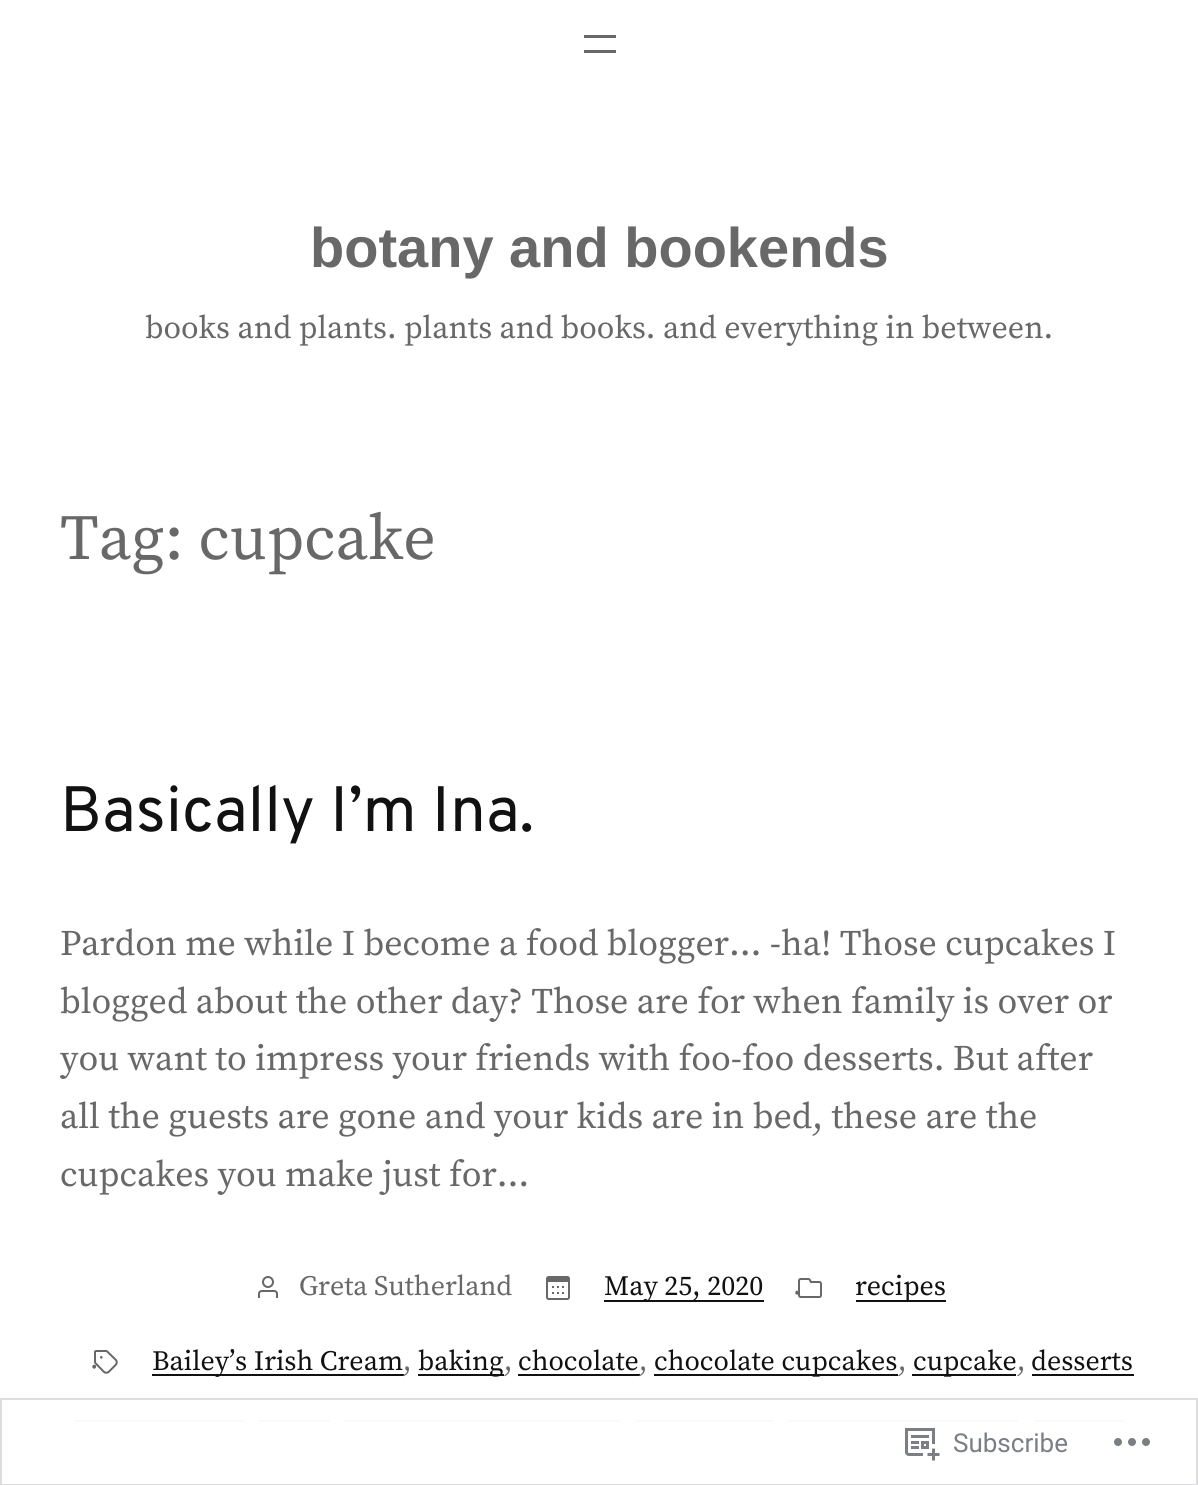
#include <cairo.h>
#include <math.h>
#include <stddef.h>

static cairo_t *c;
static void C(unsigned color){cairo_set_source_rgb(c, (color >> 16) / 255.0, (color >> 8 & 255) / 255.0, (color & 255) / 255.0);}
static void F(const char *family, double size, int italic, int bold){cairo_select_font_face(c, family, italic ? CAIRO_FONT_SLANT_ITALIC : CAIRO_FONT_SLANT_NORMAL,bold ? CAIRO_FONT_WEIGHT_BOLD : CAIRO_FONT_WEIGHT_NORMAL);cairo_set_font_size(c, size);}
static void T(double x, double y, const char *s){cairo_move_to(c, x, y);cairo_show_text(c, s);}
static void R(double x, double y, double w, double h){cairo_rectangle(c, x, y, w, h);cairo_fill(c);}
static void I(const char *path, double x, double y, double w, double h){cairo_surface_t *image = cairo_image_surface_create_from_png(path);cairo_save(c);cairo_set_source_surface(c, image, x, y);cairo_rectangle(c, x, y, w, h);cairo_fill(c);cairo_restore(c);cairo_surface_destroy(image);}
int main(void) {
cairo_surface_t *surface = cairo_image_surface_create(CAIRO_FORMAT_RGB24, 1198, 1485);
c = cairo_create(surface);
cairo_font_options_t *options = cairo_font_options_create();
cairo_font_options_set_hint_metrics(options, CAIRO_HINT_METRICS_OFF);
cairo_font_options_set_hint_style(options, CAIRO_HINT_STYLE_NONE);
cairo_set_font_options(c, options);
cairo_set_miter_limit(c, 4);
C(0xffffff);
cairo_paint(c);
C(0x686868);
R(584,35,32,3);
R(584,50,32,3);
F("Liberation Sans",56,0,1);
T(310,267,"botany and bookends");
F("Source Serif Pro",32,0,0);
T(145,338,"books and plants. plants and books. and everything in between.");
F("Source Serif Pro",64,0,0);
T(60,559,"Tag: cupcake");
F("Overpass",64,0,0);
C(0x111111);
T(60,831,"Basically I’m Ina.");
F("Source Serif Pro",36,0,0);
C(0x686868);
T(60,955,"Pardon me while I become a food blogger… -ha! Those cupcakes I");
T(60,1013,"blogged about the other day? Those are for when family is over or");
T(60,1070,"you want to impress your friends with foo-foo desserts. But after");
T(60,1128,"all the guests are gone and your kids are in bed, these are the");
T(60,1186,"cupcakes you make just for…");
I("1.png",258,1276,20,22);
F("Source Serif Pro",28,0,0);
T(299,1295,"Greta Sutherland");
I("2.png",546,1276,24,24);
C(0x111111);
R(604,1300,160,2);
T(604,1295,"May 25, 2020");
I("3.png",798,1278,24,20);
C(0x686868);
T(793,1302,"·");
C(0x111111);
R(856,1300,90,2);
T(855,1295,"recipes");
I("4.png",94,1350,24,24);
C(0x686868);
T(90,1376,"·");
C(0x111111);
R(152,1374,252,2);
T(152,1370,"Bailey’s Irish Cream");
C(0x686868);
T(403,1370,",");
C(0x111111);
R(418,1374,86,2);
T(418,1370,"baking");
C(0x686868);
T(504,1370,",");
C(0x111111);
T(518,1370,"chocolate");
R(518,1374,122,2);
C(0x686868);
T(639,1370,",");
C(0x111111);
R(654,1374,244,2);
T(654,1370,"chocolate cupcakes");
C(0x686868);
T(898,1370,",");
C(0x111111);
R(912,1374,104,2);
T(913,1370,"cupcake");
C(0x686868);
T(1017,1370,",");
C(0x111111);
T(1031,1370,"desserts");
R(1032,1374,102,2);
R(74,1420,170,2);
R(258,1420,72,2);
R(344,1420,276,2);
R(636,1420,138,2);
R(788,1420,230,2);
R(1034,1420,90,2);
cairo_set_source_rgba(c,1,1,1,0.98);
R(74,1420,1050,2);
cairo_rectangle(c,1,1399,1196,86);
cairo_set_source_rgba(c,0.863,0.863,0.871,0.98);
cairo_stroke(c);
I("5.png",905,1428,35,33);
F("Roboto",26,0,0);
C(0x7b7f85);
T(953,1452,"Subscribe");
I("6.png",1114,1438,36,8);
cairo_surface_write_to_png(surface, "o.png");
cairo_font_options_destroy(options);
cairo_destroy(c);
cairo_surface_destroy(surface);
return 0;
}
